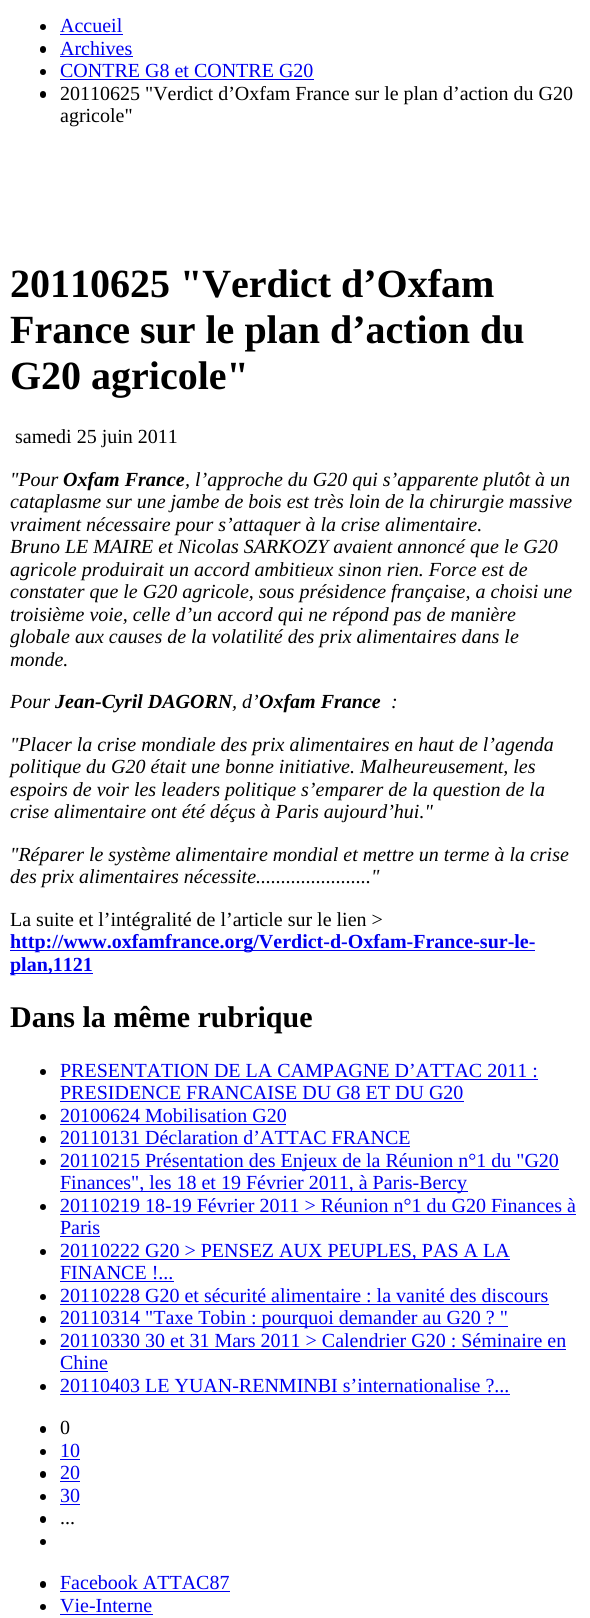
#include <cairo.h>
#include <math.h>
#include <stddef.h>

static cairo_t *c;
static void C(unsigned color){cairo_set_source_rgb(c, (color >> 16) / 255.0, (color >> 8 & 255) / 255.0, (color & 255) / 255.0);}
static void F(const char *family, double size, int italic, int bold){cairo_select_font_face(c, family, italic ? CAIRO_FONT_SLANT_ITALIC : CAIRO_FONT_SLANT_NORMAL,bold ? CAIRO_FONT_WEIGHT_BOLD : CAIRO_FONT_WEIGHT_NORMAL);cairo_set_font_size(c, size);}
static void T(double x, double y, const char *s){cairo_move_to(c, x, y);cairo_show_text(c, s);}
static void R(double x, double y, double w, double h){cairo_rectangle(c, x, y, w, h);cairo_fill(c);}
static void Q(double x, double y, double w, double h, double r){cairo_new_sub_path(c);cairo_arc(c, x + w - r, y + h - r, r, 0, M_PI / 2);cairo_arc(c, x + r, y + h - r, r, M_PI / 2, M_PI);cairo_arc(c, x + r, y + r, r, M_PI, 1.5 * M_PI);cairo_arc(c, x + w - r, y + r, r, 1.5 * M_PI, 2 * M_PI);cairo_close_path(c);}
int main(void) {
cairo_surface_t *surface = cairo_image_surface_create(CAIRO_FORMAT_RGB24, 590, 1618);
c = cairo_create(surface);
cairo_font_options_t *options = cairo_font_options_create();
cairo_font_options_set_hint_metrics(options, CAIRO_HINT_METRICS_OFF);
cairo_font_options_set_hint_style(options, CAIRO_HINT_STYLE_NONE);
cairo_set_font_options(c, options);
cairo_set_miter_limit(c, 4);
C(0xffffff);
cairo_paint(c);
C(0x000000);
cairo_arc(c,43,27,3,0,2 * M_PI);
cairo_fill(c);
F("Liberation Serif",20,0,0);
C(0x0000ee);
T(60,32,"Accueil");
R(60,34,63,1);
C(0x000000);
Q(40,46,6,7,3);
cairo_fill(c);
C(0x0000ee);
T(60,55,"Archives");
R(60,56,73,1);
C(0x000000);
cairo_new_path(c);
cairo_arc(c,43,72,3,0,2 * M_PI);
cairo_fill(c);
C(0x0000ee);
T(60,77,"CONTRE G8 et CONTRE G20");
R(60,79,254,1);
C(0x000000);
Q(40,91,6,7,3);
cairo_fill(c);
T(60,100,"20110625 \"Verdict d’Oxfam France sur le plan d’action du G20");
T(60,122,"agricole\"");
F("Liberation Serif",40,0,1);
T(10,297,"20110625 \"Verdict d’Oxfam");
T(10,343,"France sur le plan d’action du");
T(10,389,"G20 agricole\"");
F("Liberation Serif",20,0,0);
T(15,443,"samedi 25 juin 2011");
F("Liberation Serif",20,1,0);
T(10,486,"\"Pour");
F("Liberation Serif",20,1,1);
T(63,486,"Oxfam France");
F("Liberation Serif",20,1,0);
T(185,486,", l’approche du G20 qui s’apparente plutôt à un");
T(10,508,"cataplasme sur une jambe de bois est très loin de la chirurgie massive");
T(10,531,"vraiment nécessaire pour s’attaquer à la crise alimentaire.");
T(10,553,"Bruno LE MAIRE et Nicolas SARKOZY avaient annoncé que le G20");
T(10,576,"agricole produirait un accord ambitieux sinon rien. Force est de");
T(10,598,"constater que le G20 agricole, sous présidence française, a choisi une");
T(10,621,"troisième voie, celle d’un accord qui ne répond pas de manière");
T(10,643,"globale aux causes de la volatilité des prix alimentaires dans le");
T(10,666,"monde.");
T(10,708,"Pour");
F("Liberation Serif",20,1,1);
T(55,708,"Jean-Cyril DAGORN");
F("Liberation Serif",20,1,0);
T(232,708,", d’");
F("Liberation Serif",20,1,1);
T(259,708,"Oxfam France");
F("Liberation Serif",20,1,0);
T(391,708,":");
T(10,751,"\"Placer la crise mondiale des prix alimentaires en haut de l’agenda");
T(10,773,"politique du G20 était une bonne initiative. Malheureusement, les");
T(10,796,"espoirs de voir les leaders politique s’emparer de la question de la");
T(10,818,"crise alimentaire ont été déçus à Paris aujourd’hui.\"");
T(10,861,"\"Réparer le système alimentaire mondial et mettre un terme à la crise");
T(10,883,"des prix alimentaires nécessite.......................\"");
F("Liberation Serif",20,0,0);
T(10,926,"La suite et l’intégralité de l’article sur le lien >");
C(0x0000ee);
R(10,950,525,1);
F("Liberation Serif",20,0,1);
T(10,948,"http://www.oxfamfrance.org/Verdict-d-Oxfam-France-sur-le-");
R(10,973,83,1);
T(10,971,"plan,1121");
F("Liberation Serif",30,0,1);
C(0x000000);
T(10,1027,"Dans la même rubrique");
cairo_new_path(c);
cairo_arc(c,43,1072,3,0,2 * M_PI);
cairo_fill(c);
F("Liberation Serif",20,0,0);
C(0x0000ee);
T(60,1077,"PRESENTATION DE LA CAMPAGNE D’ATTAC 2011 :");
R(60,1079,478,1);
T(60,1099,"PRESIDENCE FRANCAISE DU G8 ET DU G20");
R(60,1101,404,1);
C(0x000000);
cairo_new_path(c);
cairo_arc(c,43,1117,3,0,2 * M_PI);
cairo_fill(c);
C(0x0000ee);
T(60,1122,"20100624 Mobilisation G20");
R(60,1124,226,1);
C(0x000000);
Q(40,1136,6,7,3);
cairo_fill(c);
C(0x0000ee);
T(60,1144,"20110131 Déclaration d’ATTAC FRANCE");
R(60,1146,350,1);
C(0x000000);
cairo_new_path(c);
cairo_arc(c,43,1162,3,0,2 * M_PI);
cairo_fill(c);
C(0x0000ee);
R(60,1169,499,1);
T(60,1167,"20110215 Présentation des Enjeux de la Réunion n°1 du \"G20");
R(60,1191,408,1);
T(60,1189,"Finances\", les 18 et 19 Février 2011, à Paris-Bercy");
C(0x000000);
cairo_new_path(c);
cairo_arc(c,43,1207,3,0,2 * M_PI);
cairo_fill(c);
C(0x0000ee);
T(60,1212,"20110219 18-19 Février 2011 > Réunion n°1 du G20 Finances à");
R(60,1214,516,1);
T(60,1234,"Paris");
R(60,1236,40,1);
C(0x000000);
cairo_new_path(c);
cairo_arc(c,43,1252,3,0,2 * M_PI);
cairo_fill(c);
C(0x0000ee);
R(60,1259,450,1);
T(60,1257,"20110222 G20 > PENSEZ AUX PEUPLES, PAS A LA");
T(60,1279,"FINANCE !...");
R(60,1281,114,1);
C(0x000000);
cairo_new_path(c);
cairo_arc(c,43,1297,3,0,2 * M_PI);
cairo_fill(c);
C(0x0000ee);
T(60,1302,"20110228 G20 et sécurité alimentaire : la vanité des discours");
R(60,1304,489,1);
C(0x000000);
Q(40,1316,6,7,3);
cairo_fill(c);
C(0x0000ee);
R(60,1326,448,1);
T(60,1324,"20110314 \"Taxe Tobin : pourquoi demander au G20 ? \"");
C(0x000000);
cairo_new_path(c);
cairo_arc(c,43,1342,3,0,2 * M_PI);
cairo_fill(c);
C(0x0000ee);
T(60,1347,"20110330 30 et 31 Mars 2011 > Calendrier G20 : Séminaire en");
R(60,1349,506,1);
T(60,1369,"Chine");
R(60,1371,48,1);
C(0x000000);
cairo_new_path(c);
cairo_arc(c,43,1387,3,0,2 * M_PI);
cairo_fill(c);
C(0x0000ee);
T(60,1392,"20110403 LE YUAN-RENMINBI s’internationalise ?...");
R(60,1394,450,1);
C(0x000000);
Q(40,1426,6,7,3);
cairo_fill(c);
T(60,1434,"0");
cairo_new_path(c);
cairo_arc(c,43,1452,3,0,2 * M_PI);
cairo_fill(c);
C(0x0000ee);
T(60,1457,"10");
R(60,1459,20,1);
C(0x000000);
Q(40,1471,6,7,3);
cairo_fill(c);
C(0x0000ee);
T(60,1479,"20");
R(60,1481,20,1);
C(0x000000);
cairo_new_path(c);
cairo_arc(c,43,1497,3,0,2 * M_PI);
cairo_fill(c);
C(0x0000ee);
T(60,1502,"30");
R(60,1504,20,1);
C(0x000000);
Q(40,1516,6,7,3);
cairo_fill(c);
T(60,1524,"...");
cairo_new_path(c);
cairo_arc(c,43,1542,3,0,2 * M_PI);
cairo_fill(c);
Q(40,1581,6,7,3);
cairo_fill(c);
C(0x0000ee);
T(60,1589,"Facebook ATTAC87");
R(60,1591,170,1);
C(0x000000);
cairo_new_path(c);
cairo_arc(c,43,1607,3,0,2 * M_PI);
cairo_fill(c);
C(0x0000ee);
T(60,1612,"Vie-Interne");
R(60,1614,93,1);
cairo_surface_write_to_png(surface, "o.png");
cairo_font_options_destroy(options);
cairo_destroy(c);
cairo_surface_destroy(surface);
return 0;
}
